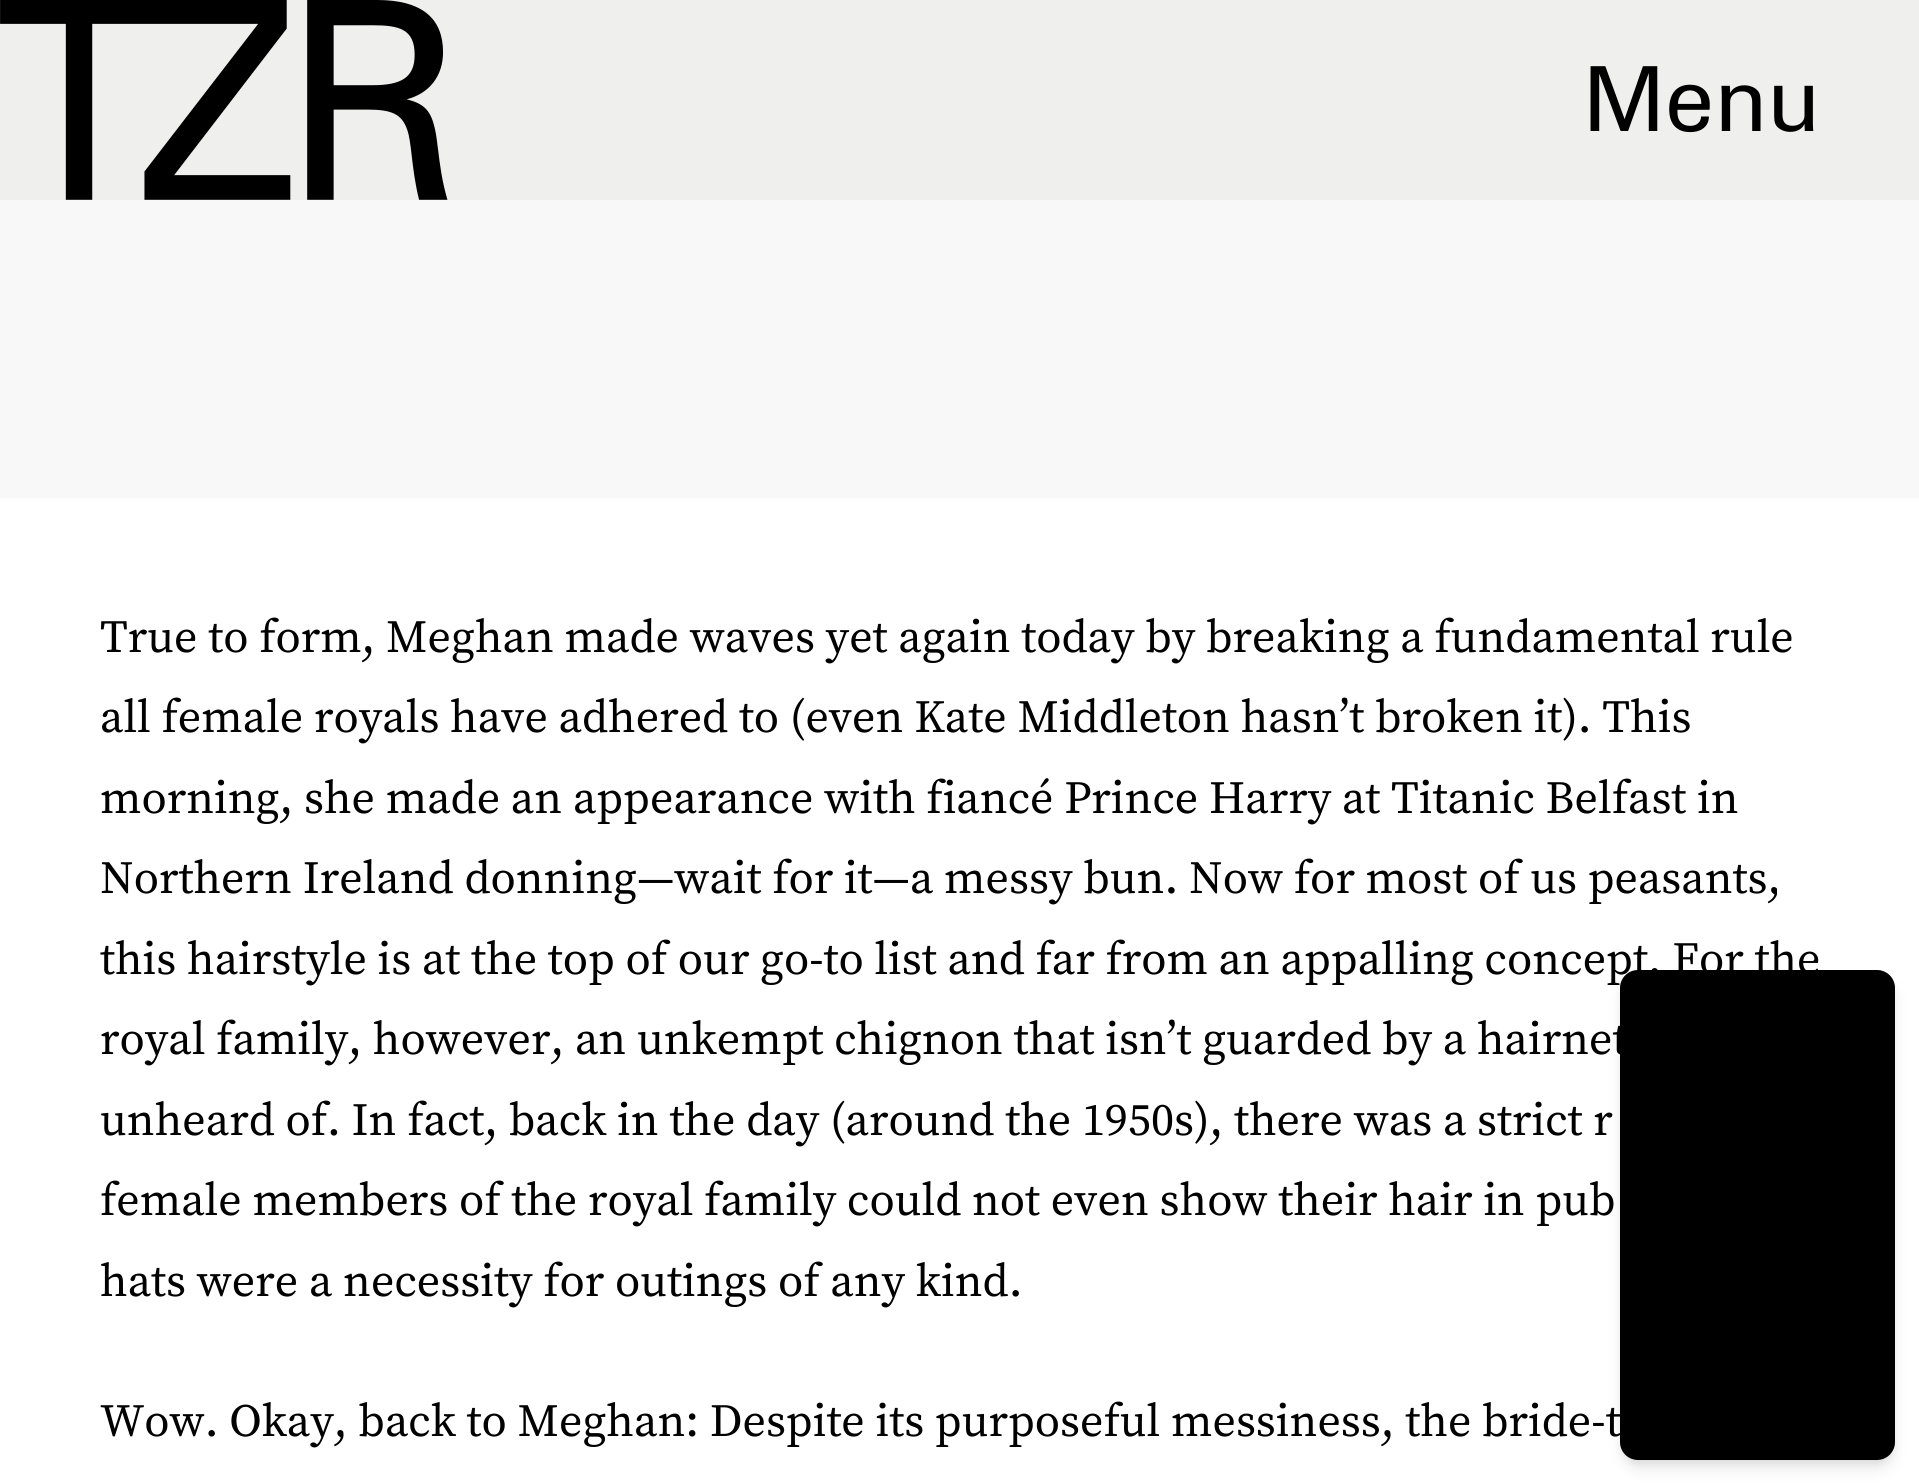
#include <cairo.h>
#include <math.h>
#include <stddef.h>

static cairo_t *c;
static void C(unsigned color){cairo_set_source_rgb(c, (color >> 16) / 255.0, (color >> 8 & 255) / 255.0, (color & 255) / 255.0);}
static void F(const char *family, double size, int italic, int bold){cairo_select_font_face(c, family, italic ? CAIRO_FONT_SLANT_ITALIC : CAIRO_FONT_SLANT_NORMAL,bold ? CAIRO_FONT_WEIGHT_BOLD : CAIRO_FONT_WEIGHT_NORMAL);cairo_set_font_size(c, size);}
static void T(double x, double y, const char *s){cairo_move_to(c, x, y);cairo_show_text(c, s);}
static void R(double x, double y, double w, double h){cairo_rectangle(c, x, y, w, h);cairo_fill(c);}
static void Q(double x, double y, double w, double h, double r){cairo_new_sub_path(c);cairo_arc(c, x + w - r, y + h - r, r, 0, M_PI / 2);cairo_arc(c, x + r, y + h - r, r, M_PI / 2, M_PI);cairo_arc(c, x + r, y + r, r, M_PI, 1.5 * M_PI);cairo_arc(c, x + w - r, y + r, r, 1.5 * M_PI, 2 * M_PI);cairo_close_path(c);}
static void S(double x, double y, double w, double h, double r, double blur, double alpha){cairo_push_group_with_content(c, CAIRO_CONTENT_ALPHA);cairo_set_operator(c, CAIRO_OPERATOR_SOURCE);for (int i = 15; i >= -15 && fmin(w, h) + blur * i / 3 > 0; i -= 2) {double e = blur * i / 6;cairo_set_source_rgba(c, 0, 0, 0, alpha * erfc((i - 1) / 8.5) / 2);Q(x - e, y - e, w + 2 * e, h + 2 * e, fmax(0, fmin(r + e + blur * .6, fmin(w, h) / 2 + e)));cairo_fill(c);}cairo_pattern_t *soft = cairo_pop_group(c);cairo_mask(c, soft);cairo_pattern_destroy(soft);}
static void I(const char *path, double x, double y, double w, double h){cairo_surface_t *image = cairo_image_surface_create_from_png(path);cairo_save(c);cairo_set_source_surface(c, image, x, y);cairo_rectangle(c, x, y, w, h);cairo_fill(c);cairo_restore(c);cairo_surface_destroy(image);}
int main(void) {
cairo_surface_t *surface = cairo_image_surface_create(CAIRO_FORMAT_RGB24, 1919, 1483);
c = cairo_create(surface);
cairo_font_options_t *options = cairo_font_options_create();
cairo_font_options_set_hint_metrics(options, CAIRO_HINT_METRICS_OFF);
cairo_font_options_set_hint_style(options, CAIRO_HINT_STYLE_NONE);
cairo_set_font_options(c, options);
cairo_set_miter_limit(c, 4);
C(0xffffff);
cairo_paint(c);
C(0xeff0ee);
R(0,0,1919,200);
I("1.png",0,0,448,200);
F("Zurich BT",90,0,0);
C(0x000000);
T(1583,131,"Menu");
C(0xf8f8f8);
R(0,200,1919,298);
F("Source Serif Pro",46,0,0);
C(0x000000);
T(100,652,"True to form, Meghan made waves yet again today by breaking a fundamental rule");
T(100,732,"all female royals have adhered to (even Kate Middleton hasn’t broken it). This");
T(100,813,"morning, she made an appearance with fiancé Prince Harry at Titanic Belfast in");
T(100,893,"Northern Ireland donning—wait for it—a messy bun. Now for most of us peasants,");
T(100,974,"this hairstyle is at the top of our go-to list and far from an appalling concept. For the");
T(100,1054,"royal family, however, an unkempt chignon that isn’t guarded by a hairnet");
T(100,1135,"unheard of. In fact, back in the day (around the 1950s), there was a strict r");
T(100,1215,"female members of the royal family could not even show their hair in pub");
T(100,1296,"hats were a necessity for outings of any kind.");
T(100,1436,"Wow. Okay, back to Meghan: Despite its purposeful messiness, the bride-t");
C(0x000000);
S(1625,980,265,480,13,5,.1);
S(1623,983,270,485,15,7.5,.1);
C(0x000000);
Q(1620,970,275,490,18);
cairo_fill(c);
cairo_surface_write_to_png(surface, "o.png");
cairo_font_options_destroy(options);
cairo_destroy(c);
cairo_surface_destroy(surface);
return 0;
}
